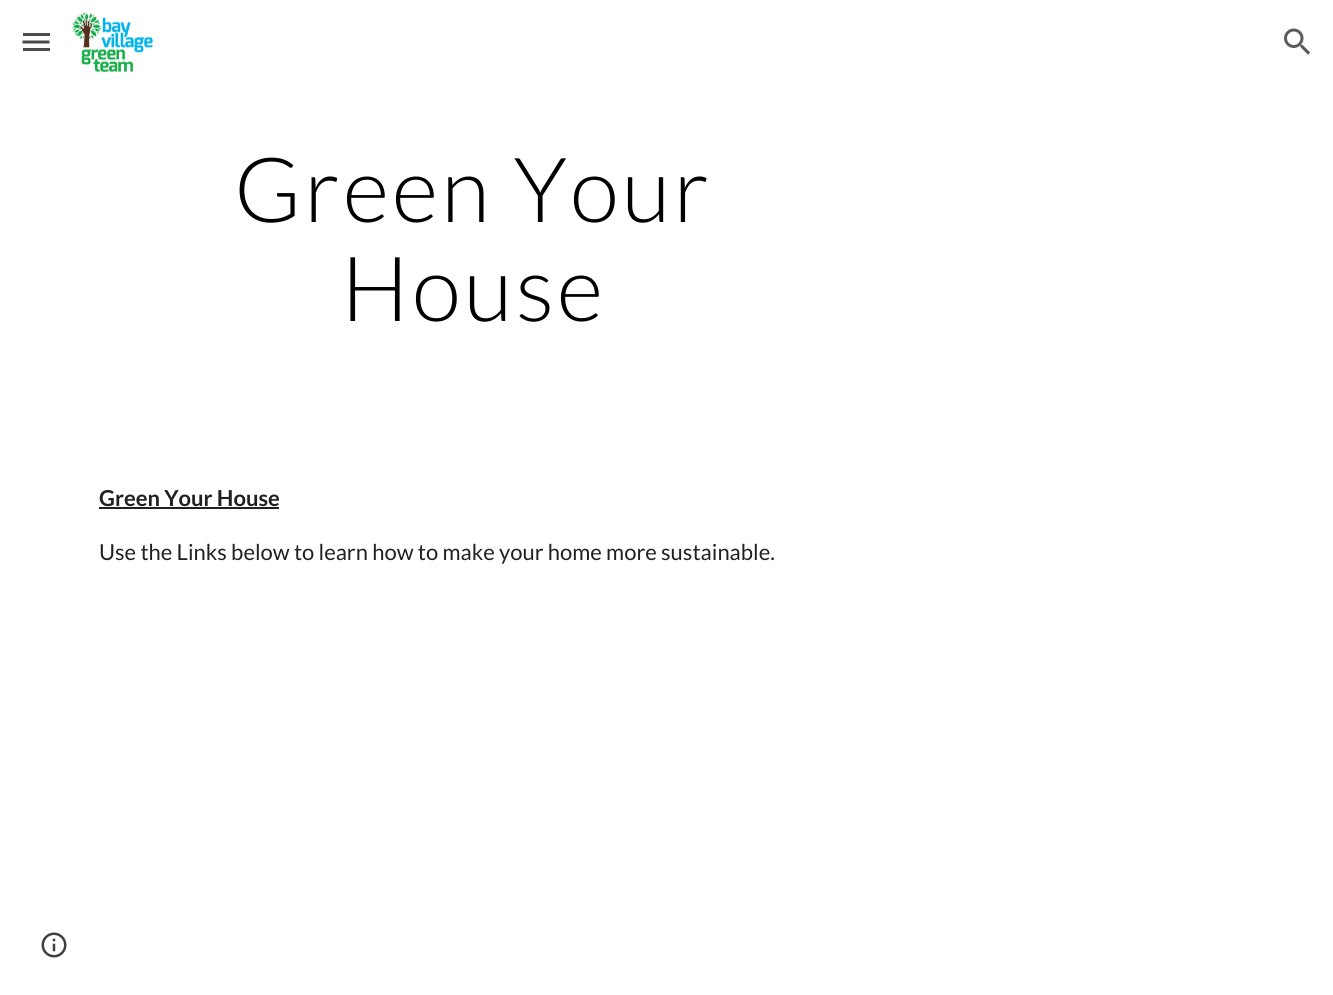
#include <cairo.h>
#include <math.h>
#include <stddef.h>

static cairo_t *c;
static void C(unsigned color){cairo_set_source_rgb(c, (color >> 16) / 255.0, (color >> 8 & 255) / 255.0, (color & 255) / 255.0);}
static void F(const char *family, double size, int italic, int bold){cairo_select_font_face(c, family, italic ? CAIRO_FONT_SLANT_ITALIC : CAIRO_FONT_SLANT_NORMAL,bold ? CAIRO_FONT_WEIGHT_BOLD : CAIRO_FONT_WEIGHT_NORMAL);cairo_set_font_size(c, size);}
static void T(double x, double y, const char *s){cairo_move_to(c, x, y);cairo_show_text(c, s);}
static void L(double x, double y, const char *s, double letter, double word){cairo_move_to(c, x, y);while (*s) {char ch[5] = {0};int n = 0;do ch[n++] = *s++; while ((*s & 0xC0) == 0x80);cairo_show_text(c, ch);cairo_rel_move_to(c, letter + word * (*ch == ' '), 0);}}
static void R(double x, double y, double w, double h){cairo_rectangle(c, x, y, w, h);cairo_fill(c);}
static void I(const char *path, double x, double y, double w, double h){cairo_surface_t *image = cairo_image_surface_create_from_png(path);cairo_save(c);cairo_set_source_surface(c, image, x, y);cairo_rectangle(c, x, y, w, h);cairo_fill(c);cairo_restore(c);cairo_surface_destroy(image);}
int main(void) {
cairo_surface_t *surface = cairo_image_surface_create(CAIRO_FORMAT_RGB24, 1333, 995);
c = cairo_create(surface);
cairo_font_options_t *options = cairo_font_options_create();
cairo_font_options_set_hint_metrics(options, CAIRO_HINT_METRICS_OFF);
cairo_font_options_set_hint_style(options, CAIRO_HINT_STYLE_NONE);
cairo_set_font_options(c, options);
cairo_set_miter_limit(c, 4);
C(0xffffff);
cairo_paint(c);
C(0x4b4b4b);
R(23,33,27,3);
cairo_new_path(c);
cairo_move_to(c,22.5,42);
cairo_line_to(c,49.5,42);
cairo_set_line_width(c,3);
cairo_stroke(c);
R(23,48,27,3);
I("1.png",72,12,81,61);
I("2.png",1284,28,27,27);
F("Lato Light",90,0,0);
C(0x000000);
L(234,222,"Green Your",3,0);
L(341,321,"House",3,0);
F("Lato",22,0,1);
C(0x212121);
T(99,506,"Green Your House");
R(99,507,180,2);
F("Lato",22,0,0);
T(99,560,"Use the Links below to learn how to make your home more sustainable.");
I("3.png",41,932,26,26);
cairo_surface_write_to_png(surface, "o.png");
cairo_font_options_destroy(options);
cairo_destroy(c);
cairo_surface_destroy(surface);
return 0;
}
